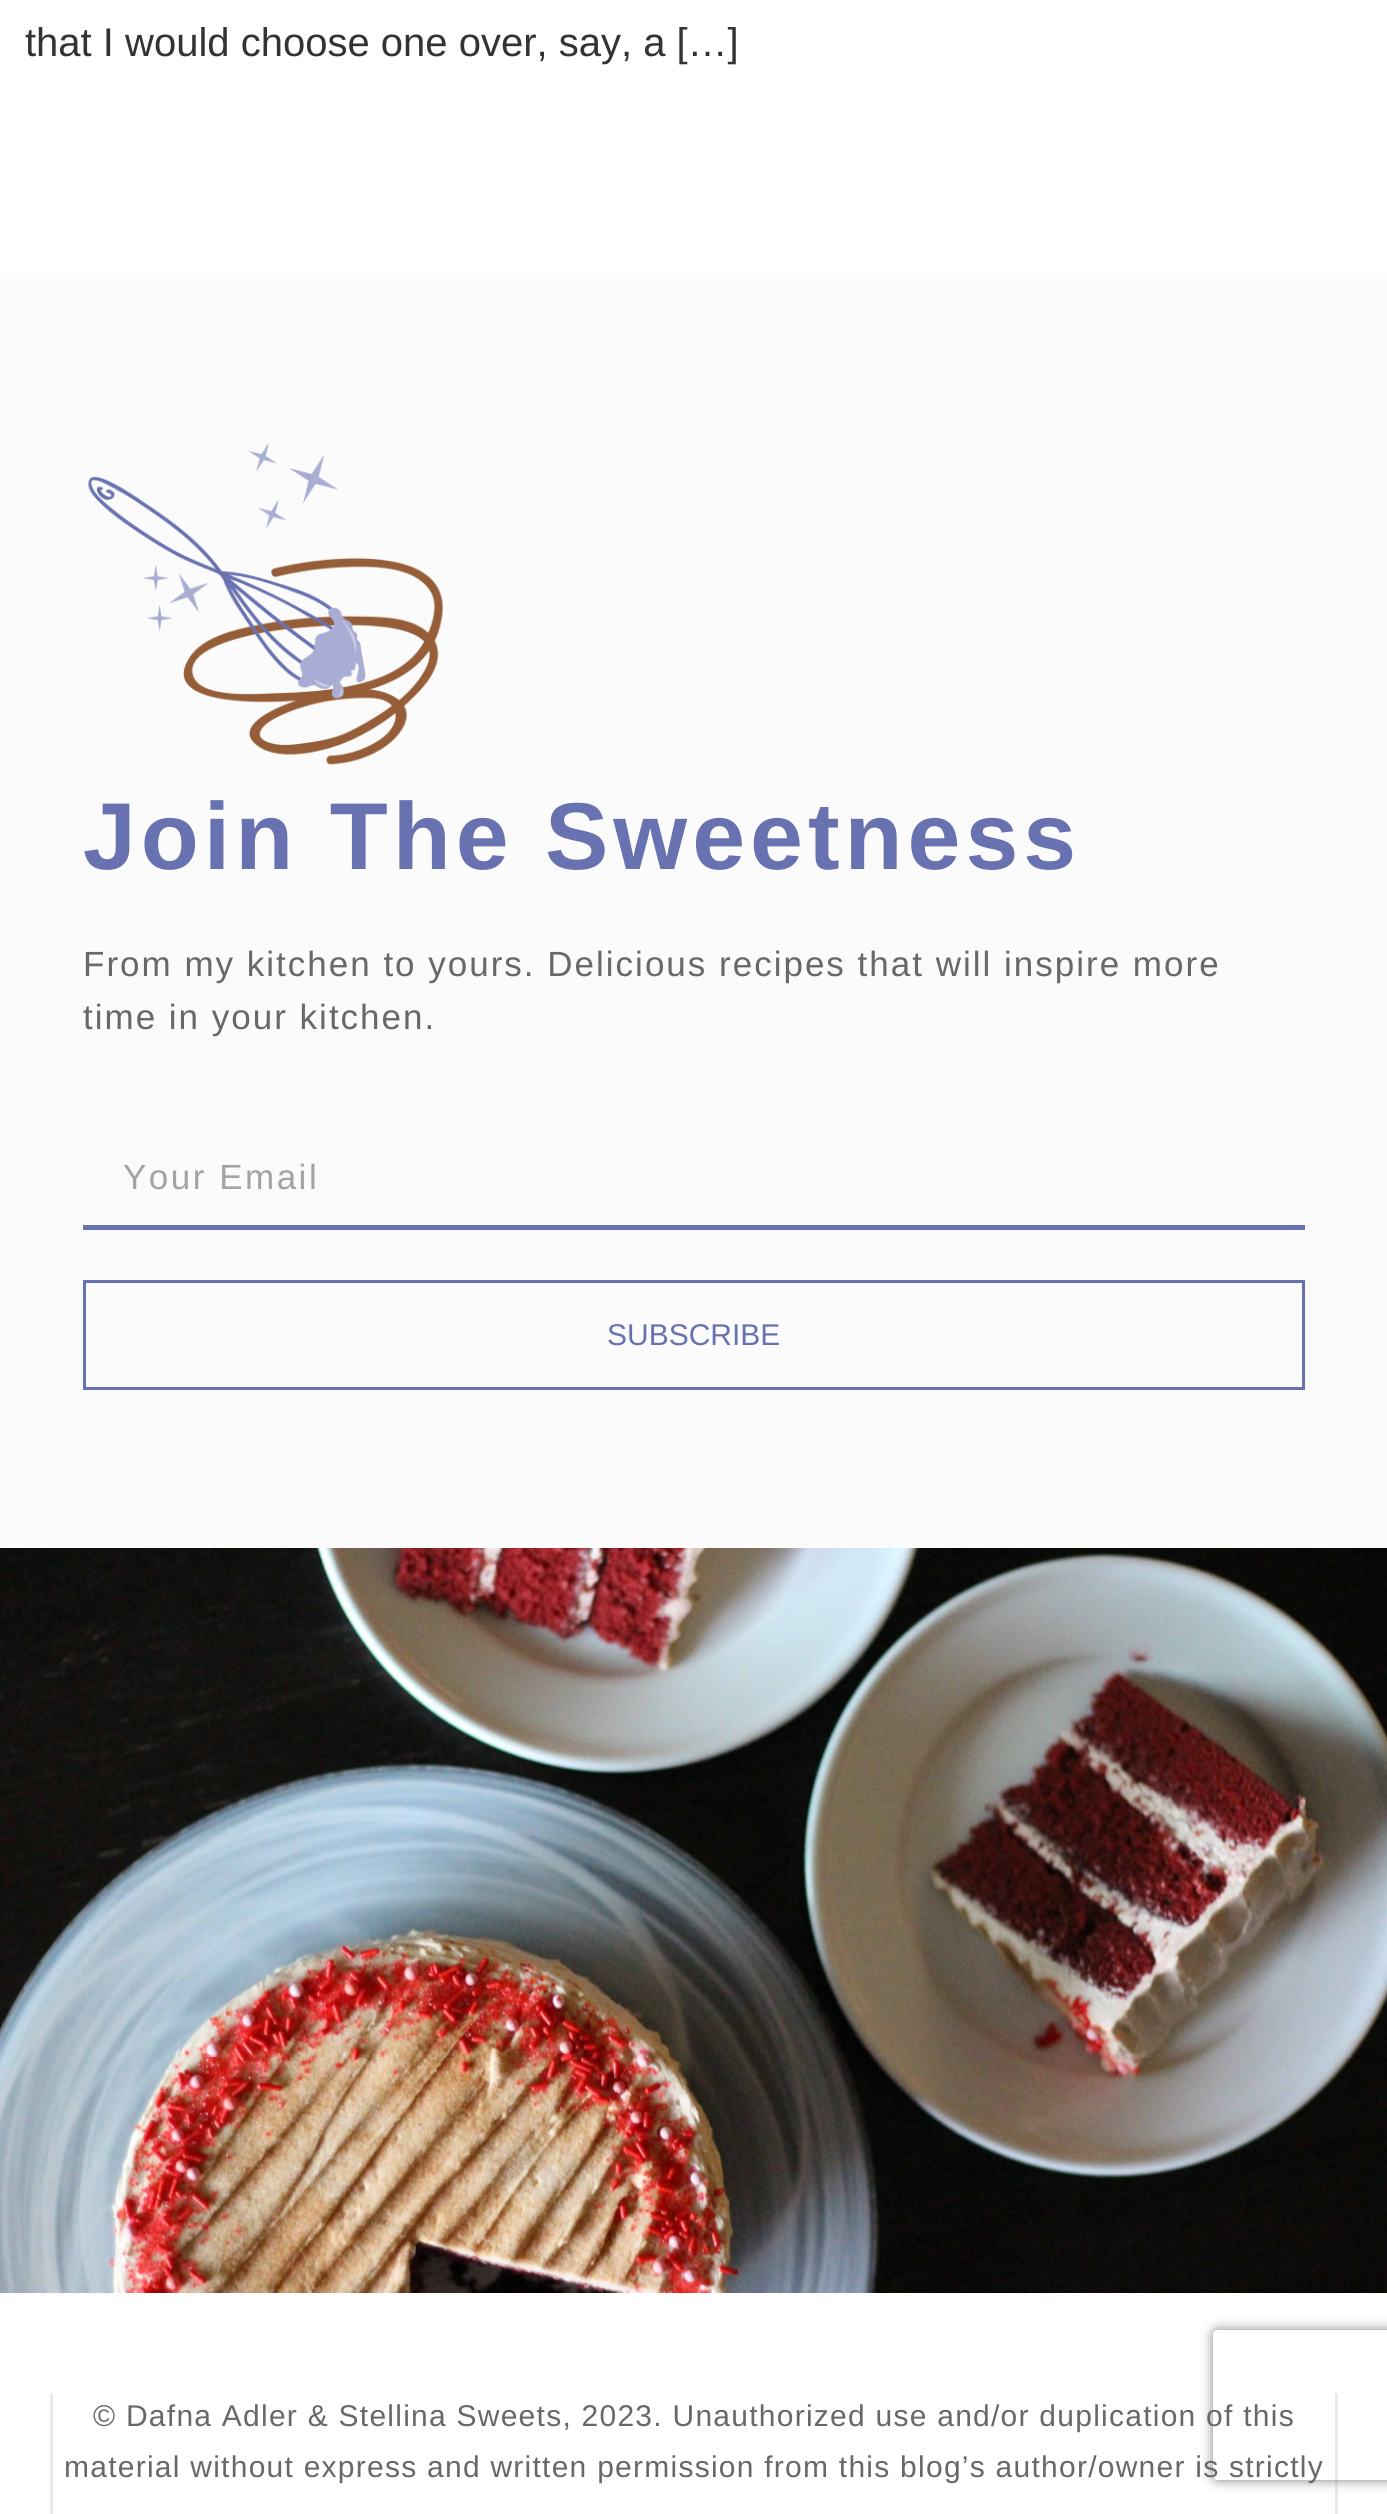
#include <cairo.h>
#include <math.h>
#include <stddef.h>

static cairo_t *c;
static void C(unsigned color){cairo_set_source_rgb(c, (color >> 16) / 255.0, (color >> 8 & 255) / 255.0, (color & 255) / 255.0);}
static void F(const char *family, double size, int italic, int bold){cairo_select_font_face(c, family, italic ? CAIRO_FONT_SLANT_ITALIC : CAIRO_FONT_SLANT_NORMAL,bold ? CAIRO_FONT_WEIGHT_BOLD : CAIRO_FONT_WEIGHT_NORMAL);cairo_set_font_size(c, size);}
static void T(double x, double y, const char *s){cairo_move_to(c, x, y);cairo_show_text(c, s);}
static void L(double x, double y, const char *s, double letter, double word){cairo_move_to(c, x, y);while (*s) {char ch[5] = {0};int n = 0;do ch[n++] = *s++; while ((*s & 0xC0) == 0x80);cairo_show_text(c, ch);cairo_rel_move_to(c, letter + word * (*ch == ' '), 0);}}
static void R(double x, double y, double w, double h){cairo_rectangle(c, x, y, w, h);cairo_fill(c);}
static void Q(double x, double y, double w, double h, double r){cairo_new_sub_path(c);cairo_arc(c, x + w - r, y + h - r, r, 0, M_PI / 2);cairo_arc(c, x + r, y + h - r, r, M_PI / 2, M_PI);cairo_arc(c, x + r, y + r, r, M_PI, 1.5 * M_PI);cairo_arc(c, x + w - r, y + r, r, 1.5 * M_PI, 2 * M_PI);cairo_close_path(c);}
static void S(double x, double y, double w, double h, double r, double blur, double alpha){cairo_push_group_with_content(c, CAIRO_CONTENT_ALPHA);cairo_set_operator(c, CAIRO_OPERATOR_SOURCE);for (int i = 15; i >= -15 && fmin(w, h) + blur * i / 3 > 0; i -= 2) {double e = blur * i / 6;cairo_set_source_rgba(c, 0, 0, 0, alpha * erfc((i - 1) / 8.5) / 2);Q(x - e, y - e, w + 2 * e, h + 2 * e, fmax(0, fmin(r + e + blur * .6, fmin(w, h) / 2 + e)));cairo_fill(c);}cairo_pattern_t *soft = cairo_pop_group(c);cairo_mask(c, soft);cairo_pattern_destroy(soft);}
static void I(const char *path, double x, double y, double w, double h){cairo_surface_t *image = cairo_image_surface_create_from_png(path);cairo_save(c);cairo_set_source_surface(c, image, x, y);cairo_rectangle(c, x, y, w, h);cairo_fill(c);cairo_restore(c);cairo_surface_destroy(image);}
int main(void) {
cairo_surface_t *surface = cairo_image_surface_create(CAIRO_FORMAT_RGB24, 1387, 2514);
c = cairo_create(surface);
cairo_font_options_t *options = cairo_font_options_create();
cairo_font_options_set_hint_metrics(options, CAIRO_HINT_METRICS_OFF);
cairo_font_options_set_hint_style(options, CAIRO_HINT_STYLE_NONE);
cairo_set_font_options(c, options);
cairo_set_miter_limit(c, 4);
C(0xffffff);
cairo_paint(c);
F("Liberation Sans",40,0,0);
C(0x333333);
T(25,56,"that I would choose one over, say, a […]");
C(0xfbfbfb);
R(0,273,1387,1275);
I("1.png",88,443,356,322);
F("Liberation Sans",95,0,1);
C(0x6872b0);
L(83,869,"Join The Sweetness",5,0);
F("Liberation Sans",35,0,0);
C(0x686868);
L(83,976,"From my kitchen to yours. Delicious recipes that will inspire more",2,0);
L(83,1029,"time in your kitchen.",2,0);
C(0x6872b0);
R(83,1225,1222,5);
C(0xa3a3a3);
L(123,1189,"Your Email",2.5,0);
cairo_rectangle(c,84.5,1281.5,1219,107);
C(0x6872b0);
cairo_set_line_width(c,3);
cairo_stroke(c);
F("Liberation Sans",30,0,0);
T(607,1345,"SUBSCRIBE");
C(0xe9e9e9);
R(1335,2393,3,121);
cairo_save(c);
cairo_set_fill_rule(c,CAIRO_FILL_RULE_EVEN_ODD);
cairo_new_path(c);
cairo_move_to(c,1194,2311);
cairo_line_to(c,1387,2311);
cairo_line_to(c,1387,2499);
cairo_line_to(c,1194,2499);
cairo_close_path(c);
cairo_move_to(c,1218,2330);
cairo_line_to(c,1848,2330);
cairo_curve_to(c,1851,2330,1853,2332,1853,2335);
cairo_line_to(c,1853,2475);
cairo_curve_to(c,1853,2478,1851,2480,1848,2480);
cairo_line_to(c,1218,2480);
cairo_curve_to(c,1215,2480,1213,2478,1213,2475);
cairo_line_to(c,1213,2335);
cairo_curve_to(c,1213,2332,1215,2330,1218,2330);
cairo_close_path(c);
cairo_clip(c);
C(0x808080);
S(1213,2330,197,150,5,6,1);
cairo_restore(c);
I("2.png",0,1548,1387,745);
R(50,2393,3,121);
C(0x686868);
L(93,2426,"© Dafna Adler & Stellina Sweets, 2023. Unauthorized use and/or duplication of this",1.25,0);
L(64,2477,"material without express and written permission from this blog’s author/owner is strictly",1.25,0);
cairo_surface_write_to_png(surface, "o.png");
cairo_font_options_destroy(options);
cairo_destroy(c);
cairo_surface_destroy(surface);
return 0;
}
